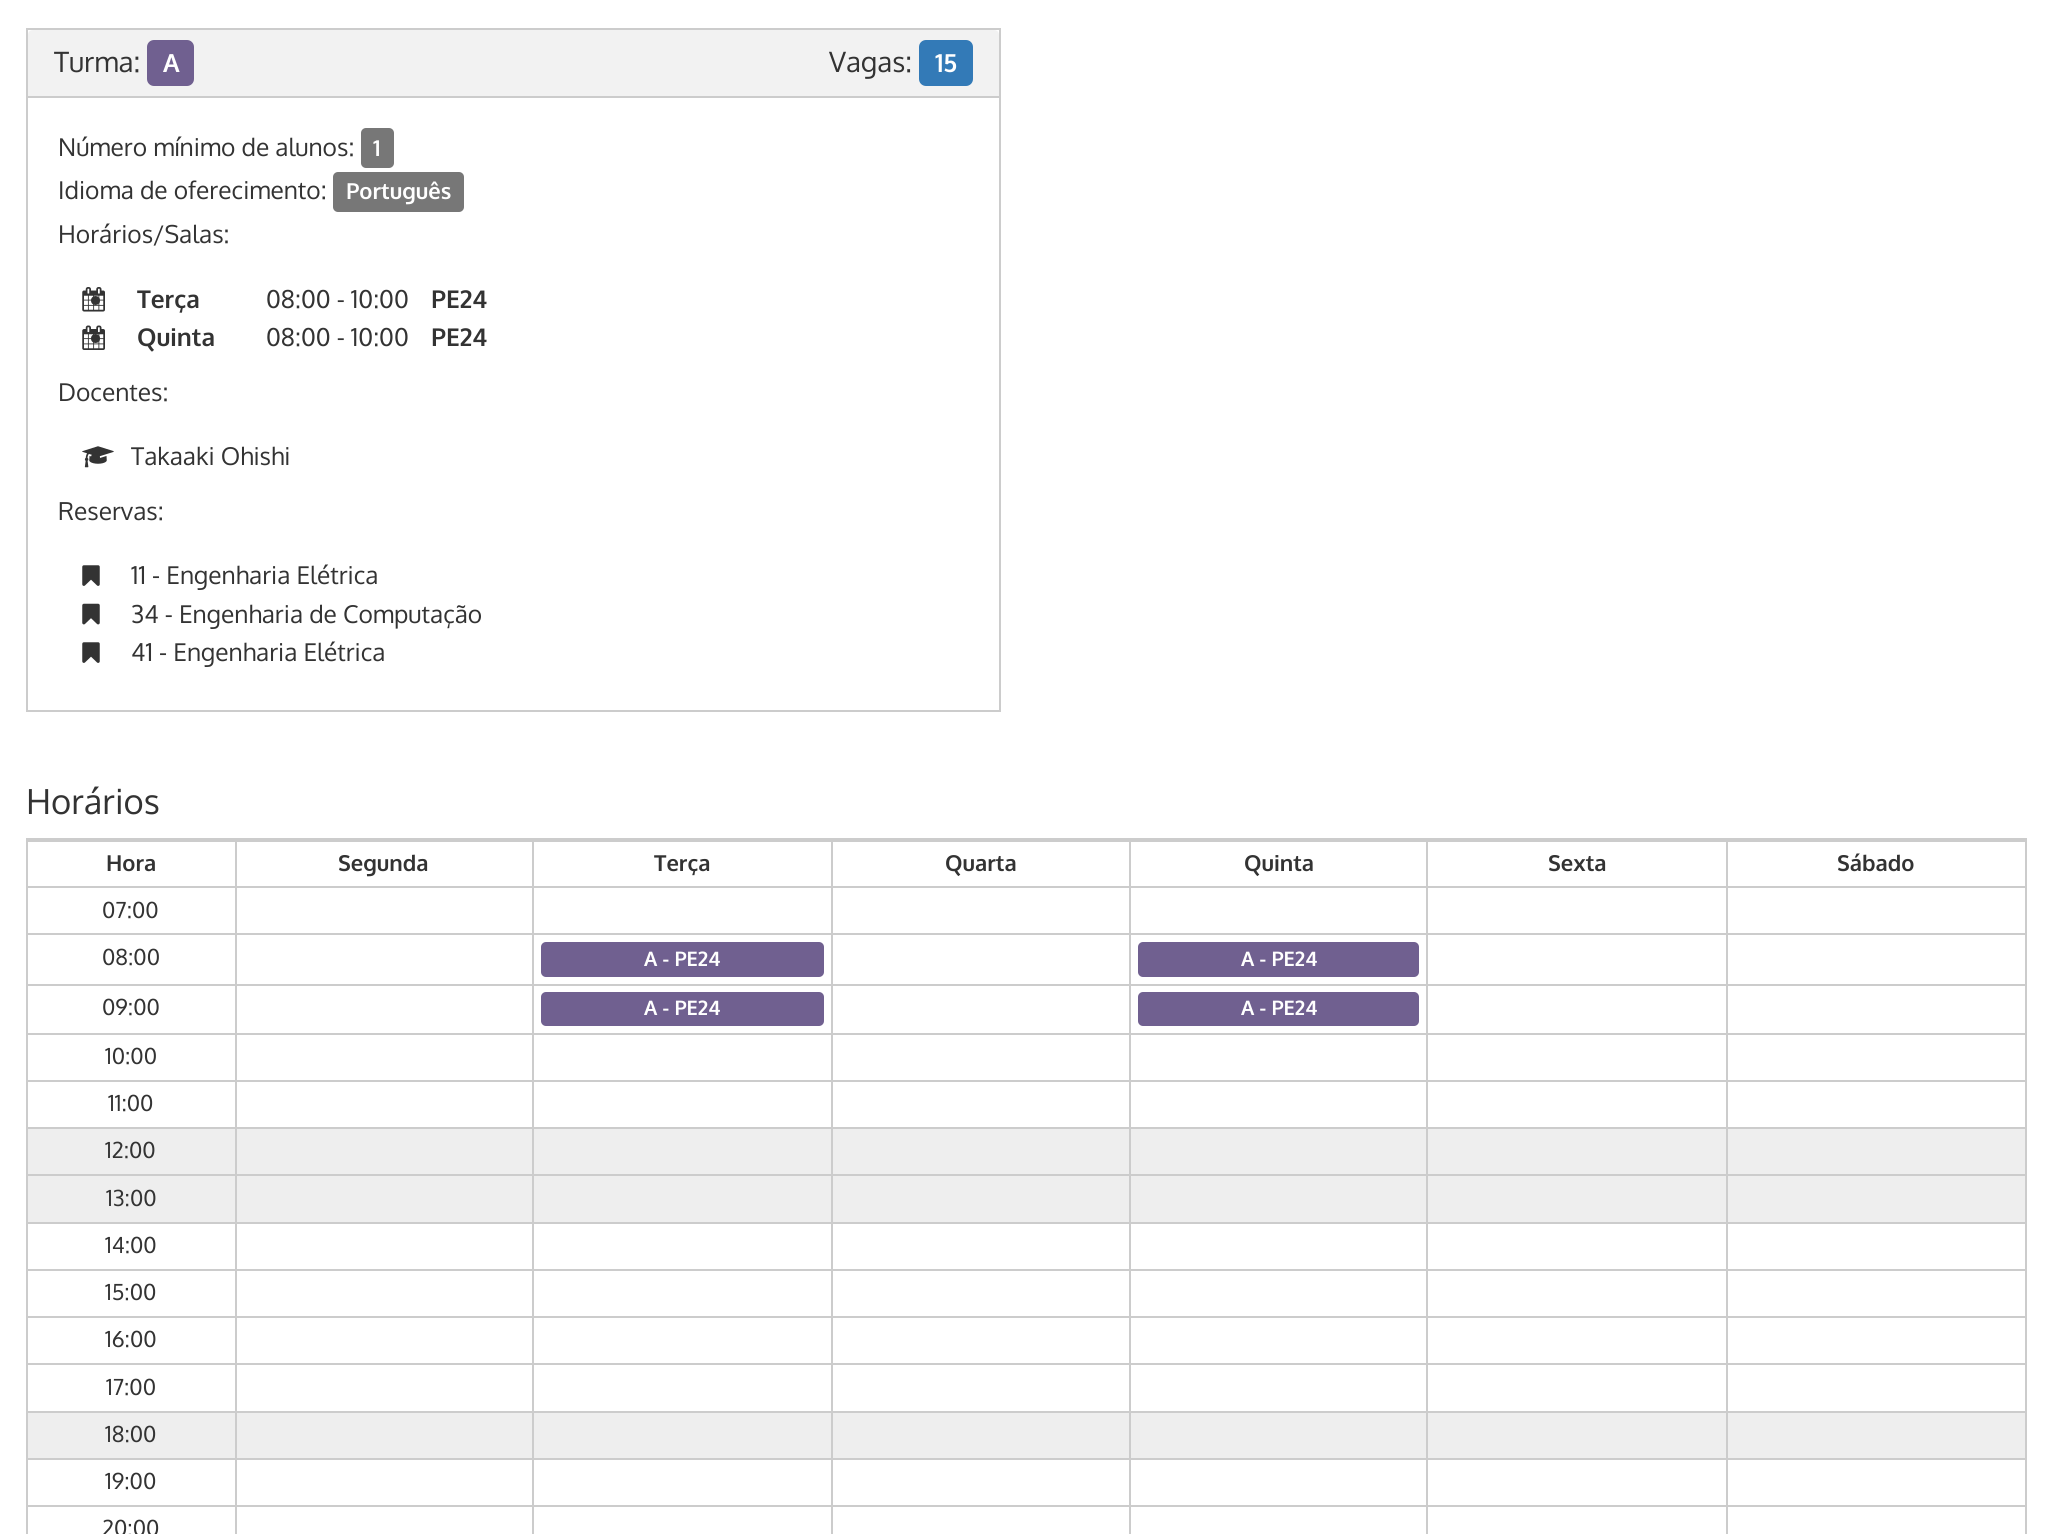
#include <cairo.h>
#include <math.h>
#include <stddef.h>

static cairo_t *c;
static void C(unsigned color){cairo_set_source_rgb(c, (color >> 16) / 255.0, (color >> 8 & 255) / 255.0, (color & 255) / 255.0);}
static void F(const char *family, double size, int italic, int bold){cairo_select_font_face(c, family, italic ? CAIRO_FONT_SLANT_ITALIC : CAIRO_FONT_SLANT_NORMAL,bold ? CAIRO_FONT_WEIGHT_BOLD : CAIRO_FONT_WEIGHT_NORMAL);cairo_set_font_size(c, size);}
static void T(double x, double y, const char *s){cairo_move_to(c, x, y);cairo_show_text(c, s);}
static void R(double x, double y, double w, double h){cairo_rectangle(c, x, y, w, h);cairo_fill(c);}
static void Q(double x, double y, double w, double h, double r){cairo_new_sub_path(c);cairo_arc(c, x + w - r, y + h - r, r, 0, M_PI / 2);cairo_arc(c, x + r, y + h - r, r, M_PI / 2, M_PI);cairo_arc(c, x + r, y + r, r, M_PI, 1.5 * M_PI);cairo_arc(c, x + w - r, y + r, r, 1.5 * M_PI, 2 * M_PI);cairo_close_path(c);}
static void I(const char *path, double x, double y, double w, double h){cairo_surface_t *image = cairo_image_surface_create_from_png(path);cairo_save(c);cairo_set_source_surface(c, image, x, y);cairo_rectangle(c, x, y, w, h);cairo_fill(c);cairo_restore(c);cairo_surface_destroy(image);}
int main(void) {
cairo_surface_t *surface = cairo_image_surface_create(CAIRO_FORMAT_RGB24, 2052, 1534);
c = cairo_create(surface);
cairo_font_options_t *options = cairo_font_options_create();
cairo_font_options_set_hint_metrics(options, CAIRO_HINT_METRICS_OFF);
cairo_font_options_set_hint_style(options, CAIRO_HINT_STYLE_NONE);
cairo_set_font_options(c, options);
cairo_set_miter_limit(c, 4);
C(0xffffff);
cairo_paint(c);
cairo_rectangle(c,27,29,973,682);
C(0xcccccc);
cairo_stroke(c);
C(0xf2f2f2);
cairo_new_path(c);
cairo_move_to(c,33,30);
cairo_line_to(c,994,30);
cairo_curve_to(c,997,30,999,32,999,35);
cairo_line_to(c,999,98);
cairo_line_to(c,28,98);
cairo_line_to(c,28,35);
cairo_curve_to(c,28,32,30,30,33,30);
cairo_close_path(c);
cairo_fill(c);
C(0xcccccc);
R(28,96,971,2);
F("Oxygen",28,0,0);
C(0x333333);
T(54,72,"Turma:");
C(0x706090);
Q(147,40,47,46,7);
cairo_fill(c);
F("Oxygen",25,0,1);
C(0xffffff);
T(163,72,"A");
F("Oxygen",28,0,0);
C(0x333333);
T(829,72,"Vagas:");
C(0x337ab7);
Q(919,40,54,46,7);
cairo_fill(c);
F("Oxygen",25,0,1);
C(0xffffff);
T(935,72,"15");
F("Oxygen",24.5,0,0);
C(0x333333);
T(58,156,"Número mínimo de alunos:");
C(0x777777);
Q(361,128,33,40,5);
cairo_fill(c);
F("Oxygen",22,0,1);
C(0xffffff);
T(373,156,"1");
F("Oxygen",24.5,0,0);
C(0x333333);
T(58,199,"Idioma de oferecimento:");
C(0x777777);
Q(333,172,131,40,5);
cairo_fill(c);
F("Oxygen",22,0,1);
C(0xffffff);
T(346,199,"Português");
F("Oxygen",24.5,0,0);
C(0x333333);
T(58,243,"Horários/Salas:");
cairo_new_path(c);
cairo_arc(c,95.5,300.5,4.5,0,2 * M_PI);
cairo_fill(c);
I("1.png",82,287,23,25);
F("Oxygen",24.5,0,1);
T(137,308,"Terça");
F("Oxygen",24.5,0,0);
T(266,308,"08:00 - 10:00");
F("Oxygen",24.5,0,1);
T(431,308,"PE24");
cairo_new_path(c);
cairo_arc(c,95.5,338.5,4.5,0,2 * M_PI);
cairo_fill(c);
I("2.png",82,325,23,25);
T(137,346,"Quinta");
F("Oxygen",24.5,0,0);
T(266,346,"08:00 - 10:00");
F("Oxygen",24.5,0,1);
T(431,346,"PE24");
F("Oxygen",24.5,0,0);
T(58,401,"Docentes:");
cairo_new_path(c);
cairo_arc(c,95.5,457.5,4.5,0,2 * M_PI);
cairo_fill(c);
I("3.png",82,446,32,22);
T(131,465,"Takaaki Ohishi");
T(58,520,"Reservas:");
I("4.png",82,565,18,21);
T(131,584,"11 - Engenharia Elétrica");
I("5.png",82,603,18,22);
T(131,623,"34 - Engenharia de Computação");
I("4.png",82,642,18,21);
T(131,661,"41 - Engenharia Elétrica");
F("Oxygen",34.5,0,0);
T(26,814,"Horários");
C(0xcccccc);
R(26,838,2001,2);
R(2025,838,2,696);
R(26,838,2,696);
R(28,840,1997,2);
F("Oxygen",22,0,1);
C(0x333333);
T(106,871,"Hora");
C(0xcccccc);
R(1726,886,299,2);
R(1726,933,299,2);
R(1726,984,299,2);
R(1726,1033,299,2);
R(1726,1080,299,2);
R(1726,1127,299,2);
R(1726,1174,299,2);
R(1726,1222,299,2);
R(1726,1269,299,2);
R(1726,1316,299,2);
R(1726,1363,299,2);
R(1726,1411,299,2);
R(1726,1458,299,2);
R(1726,1505,299,2);
R(1726,1505,2,29);
R(1426,1505,301,2);
R(1726,1458,2,49);
R(1426,1458,301,2);
R(1726,1411,2,49);
R(1426,1411,301,2);
R(1726,1363,2,49);
R(1426,1363,301,2);
R(1726,1316,2,49);
R(1426,1316,301,2);
R(1726,1269,2,49);
R(1426,1269,301,2);
R(1726,1222,2,49);
R(1426,1222,301,2);
R(1726,1174,2,49);
R(1426,1174,301,2);
R(1726,1127,2,49);
R(1426,1127,301,2);
R(1726,1080,2,49);
R(1426,1080,301,2);
R(1726,1033,2,49);
R(1426,1033,301,2);
R(1726,984,2,50);
R(1426,984,301,2);
R(1726,933,2,52);
R(1426,933,301,2);
R(1726,886,2,49);
R(1426,886,301,2);
R(1426,1505,2,29);
R(1129,1505,299,2);
R(1426,1458,2,49);
R(1129,1458,299,2);
R(1426,1411,2,49);
R(1129,1411,299,2);
R(1426,1363,2,49);
R(1129,1363,299,2);
R(1426,1316,2,49);
R(1129,1316,299,2);
R(1426,1269,2,49);
R(1129,1269,299,2);
R(1426,1222,2,49);
R(1129,1222,299,2);
R(1426,1174,2,49);
R(1129,1174,299,2);
R(1426,1127,2,49);
R(1129,1127,299,2);
R(1426,1080,2,49);
R(1129,1080,299,2);
R(1426,1033,2,49);
R(1129,1033,299,2);
R(1426,984,2,50);
R(1129,984,299,2);
R(1426,933,2,52);
R(1129,933,299,2);
R(1426,886,2,49);
R(1129,886,299,2);
R(1129,1505,2,29);
R(831,1505,300,2);
R(1129,1458,2,49);
R(831,1458,300,2);
R(1129,1411,2,49);
R(831,1411,300,2);
R(1129,1363,2,49);
R(831,1363,300,2);
R(1129,1316,2,49);
R(831,1316,300,2);
R(1129,1269,2,49);
R(831,1269,300,2);
R(1129,1222,2,49);
R(831,1222,300,2);
R(1129,1174,2,49);
R(831,1174,300,2);
R(1129,1127,2,49);
R(831,1127,300,2);
R(1129,1080,2,49);
R(831,1080,300,2);
R(1129,1033,2,49);
R(831,1033,300,2);
R(1129,984,2,50);
R(831,984,300,2);
R(1129,933,2,52);
R(831,933,300,2);
R(1129,886,2,49);
R(831,886,300,2);
R(831,1505,2,29);
R(532,1505,301,2);
R(831,1458,2,49);
R(532,1458,301,2);
R(831,1411,2,49);
R(532,1411,301,2);
R(831,1363,2,49);
R(532,1363,301,2);
R(831,1316,2,49);
R(532,1316,301,2);
R(831,1269,2,49);
R(532,1269,301,2);
R(831,1222,2,49);
R(532,1222,301,2);
R(831,1174,2,49);
R(532,1174,301,2);
R(831,1127,2,49);
R(532,1127,301,2);
R(831,1080,2,49);
R(532,1080,301,2);
R(831,1033,2,49);
R(532,1033,301,2);
R(831,984,2,50);
R(532,984,301,2);
R(831,933,2,52);
R(532,933,301,2);
R(831,886,2,49);
R(532,886,301,2);
R(532,1505,2,29);
R(235,1505,299,2);
R(532,1458,2,49);
R(235,1458,299,2);
R(532,1411,2,49);
R(235,1411,299,2);
R(532,1363,2,49);
R(235,1363,299,2);
R(532,1316,2,49);
R(235,1316,299,2);
R(532,1269,2,49);
R(235,1269,299,2);
R(532,1222,2,49);
R(235,1222,299,2);
R(532,1174,2,49);
R(235,1174,299,2);
R(532,1127,2,49);
R(235,1127,299,2);
R(532,1080,2,49);
R(235,1080,299,2);
R(532,1033,2,49);
R(235,1033,299,2);
R(532,984,2,50);
R(235,984,299,2);
R(532,933,2,52);
R(235,933,299,2);
R(532,886,2,49);
R(235,886,299,2);
R(235,1505,2,29);
R(28,1505,208,2);
R(235,1458,2,49);
R(28,1458,208,2);
R(235,1411,2,49);
R(28,1411,208,2);
R(235,1363,2,49);
R(28,1363,208,2);
R(235,1316,2,49);
R(28,1316,208,2);
R(235,1269,2,49);
R(28,1269,208,2);
R(235,1222,2,49);
R(28,1222,208,2);
R(235,1174,2,49);
R(28,1174,208,2);
R(235,1127,2,49);
R(28,1127,208,2);
R(235,1080,2,49);
R(28,1080,208,2);
R(235,1033,2,49);
R(28,1033,208,2);
R(235,984,2,50);
R(28,984,208,2);
R(235,933,2,52);
R(28,933,208,2);
R(235,886,2,49);
R(28,886,208,2);
R(235,840,2,47);
C(0x333333);
T(338,871,"Segunda");
C(0xcccccc);
R(532,840,2,47);
C(0x333333);
T(654,871,"Terça");
C(0xcccccc);
R(831,840,2,47);
C(0x333333);
T(945,871,"Quarta");
C(0xcccccc);
R(1129,840,2,47);
C(0x333333);
T(1244,871,"Quinta");
C(0xcccccc);
R(1426,840,2,47);
C(0x333333);
T(1548,871,"Sexta");
C(0xcccccc);
R(1726,840,2,47);
C(0x333333);
T(1837,871,"Sábado");
F("Oxygen",22,0,0);
T(102,918,"07:00");
T(102,965,"08:00");
C(0x706090);
Q(541,942,283,35,5);
cairo_fill(c);
F("Oxygen",20,0,1);
C(0xffffff);
T(644,966,"A - PE24");
C(0x706090);
Q(1138,942,281,35,5);
cairo_fill(c);
C(0xffffff);
T(1241,966,"A - PE24");
F("Oxygen",22,0,0);
C(0x333333);
T(102,1015,"09:00");
C(0x706090);
Q(541,992,283,34,5);
cairo_fill(c);
F("Oxygen",20,0,1);
C(0xffffff);
T(644,1015,"A - PE24");
C(0x706090);
Q(1138,992,281,34,5);
cairo_fill(c);
C(0xffffff);
T(1241,1015,"A - PE24");
F("Oxygen",22,0,0);
C(0x333333);
T(105,1064,"10:00");
T(108,1111,"11:00");
C(0xeeeeee);
R(28,1129,207,45);
C(0x333333);
T(105,1158,"12:00");
C(0xeeeeee);
R(237,1129,295,45);
R(534,1129,297,45);
R(833,1129,296,45);
R(1131,1129,295,45);
R(1428,1129,298,45);
R(1728,1129,297,45);
R(28,1176,207,46);
C(0x333333);
T(106,1206,"13:00");
C(0xeeeeee);
R(237,1176,295,46);
R(534,1176,297,46);
R(833,1176,296,46);
R(1131,1176,295,46);
R(1428,1176,298,46);
R(1728,1176,297,46);
C(0x333333);
T(105,1253,"14:00");
T(105,1300,"15:00");
T(105,1347,"16:00");
T(106,1395,"17:00");
C(0xeeeeee);
R(28,1413,207,45);
C(0x333333);
T(105,1442,"18:00");
C(0xeeeeee);
R(237,1413,295,45);
R(534,1413,297,45);
R(833,1413,296,45);
R(1131,1413,295,45);
R(1428,1413,298,45);
R(1728,1413,297,45);
C(0x333333);
T(105,1489,"19:00");
T(102,1536,"20:00");
cairo_surface_write_to_png(surface, "o.png");
cairo_font_options_destroy(options);
cairo_destroy(c);
cairo_surface_destroy(surface);
return 0;
}
